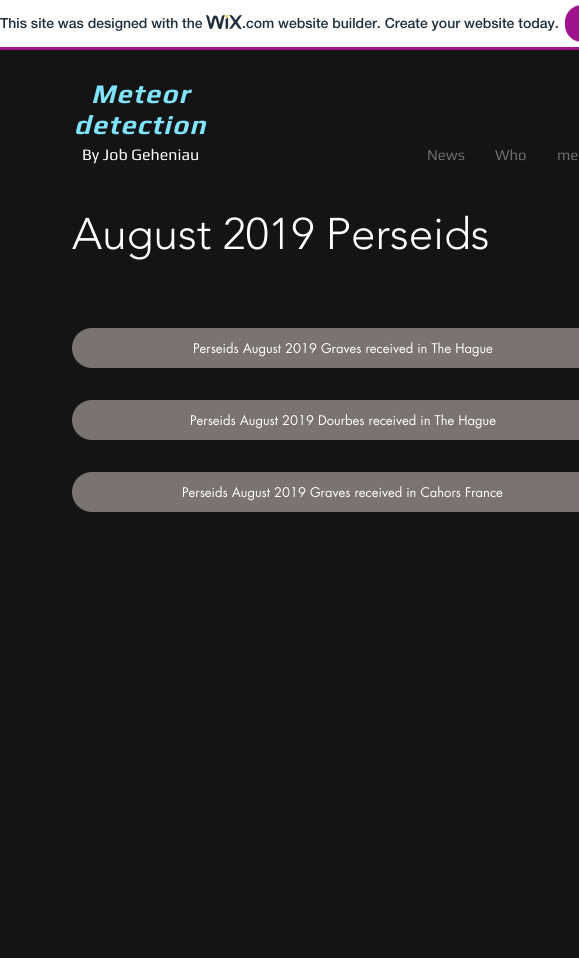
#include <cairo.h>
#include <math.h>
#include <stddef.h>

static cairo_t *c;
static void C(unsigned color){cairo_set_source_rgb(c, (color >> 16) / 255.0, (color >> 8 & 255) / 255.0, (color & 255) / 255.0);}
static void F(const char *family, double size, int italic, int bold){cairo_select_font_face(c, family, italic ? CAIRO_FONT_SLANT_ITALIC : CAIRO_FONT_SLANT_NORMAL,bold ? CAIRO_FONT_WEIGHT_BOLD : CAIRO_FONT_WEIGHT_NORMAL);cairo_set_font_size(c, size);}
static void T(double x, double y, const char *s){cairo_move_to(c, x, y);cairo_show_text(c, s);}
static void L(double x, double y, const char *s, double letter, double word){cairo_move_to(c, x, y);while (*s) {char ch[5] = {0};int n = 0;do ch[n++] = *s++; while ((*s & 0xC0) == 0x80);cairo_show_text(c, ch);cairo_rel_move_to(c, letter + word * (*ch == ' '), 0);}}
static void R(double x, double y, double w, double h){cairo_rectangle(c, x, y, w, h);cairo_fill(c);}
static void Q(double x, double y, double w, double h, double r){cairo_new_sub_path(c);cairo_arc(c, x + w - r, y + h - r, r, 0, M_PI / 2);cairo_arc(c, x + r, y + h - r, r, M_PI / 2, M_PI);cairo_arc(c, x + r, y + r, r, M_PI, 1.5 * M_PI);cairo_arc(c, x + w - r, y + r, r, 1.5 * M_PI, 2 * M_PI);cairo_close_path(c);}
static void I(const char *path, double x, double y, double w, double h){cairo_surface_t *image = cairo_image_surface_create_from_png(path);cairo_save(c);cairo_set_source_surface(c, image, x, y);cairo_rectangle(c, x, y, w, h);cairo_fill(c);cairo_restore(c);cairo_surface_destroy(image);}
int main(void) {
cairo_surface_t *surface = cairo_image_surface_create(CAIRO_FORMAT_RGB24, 579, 958);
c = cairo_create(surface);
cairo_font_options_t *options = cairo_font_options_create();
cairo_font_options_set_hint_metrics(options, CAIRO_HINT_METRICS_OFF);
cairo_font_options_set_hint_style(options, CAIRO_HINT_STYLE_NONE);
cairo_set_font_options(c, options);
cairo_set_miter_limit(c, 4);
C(0xffffff);
cairo_paint(c);
C(0xa0138e);
R(0,47,579,3);
F("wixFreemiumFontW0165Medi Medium",14,0,0);
C(0x20303c);
T(0,28,"This site was designed with the");
I("1.png",206,15,36,15);
T(242,28,".com website builder. Create your website today.");
C(0xa0138e);
Q(565.5,5.5,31,36,16.5);
cairo_fill_preserve(c);
cairo_set_line_width(c,1);
cairo_stroke(c);
C(0x141414);
R(0,50,579,908);
F("Play",27,1,1);
C(0x80e3ff);
L(91,103,"Meteor",1.25,0);
L(74,134,"detection",1.25,0);
F("Play",16,0,0);
C(0xffffff);
T(82,160,"By Job Geheniau");
F("Play",15,0,0);
C(0x6e6d6d);
T(427,160,"News");
T(495,160,"Who");
T(557,160,"me");
F("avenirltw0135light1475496 Light",44,0,0);
C(0xffffff);
T(72,249,"August 2019 Perseids");
C(0x7b736f);
Q(72,328,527,40,20);
cairo_fill(c);
F("futura",13,0,0);
C(0xffffff);
T(193,353,"Perseids August 2019 Graves received in The Hague");
C(0x7b736f);
Q(72,400,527,40,20);
cairo_fill(c);
C(0xffffff);
T(190,425,"Perseids August 2019 Dourbes received in The Hague");
C(0x7b736f);
Q(72,472,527,40,20);
cairo_fill(c);
C(0xffffff);
T(182,497,"Perseids August 2019 Graves received in Cahors France");
cairo_surface_write_to_png(surface, "o.png");
cairo_font_options_destroy(options);
cairo_destroy(c);
cairo_surface_destroy(surface);
return 0;
}
